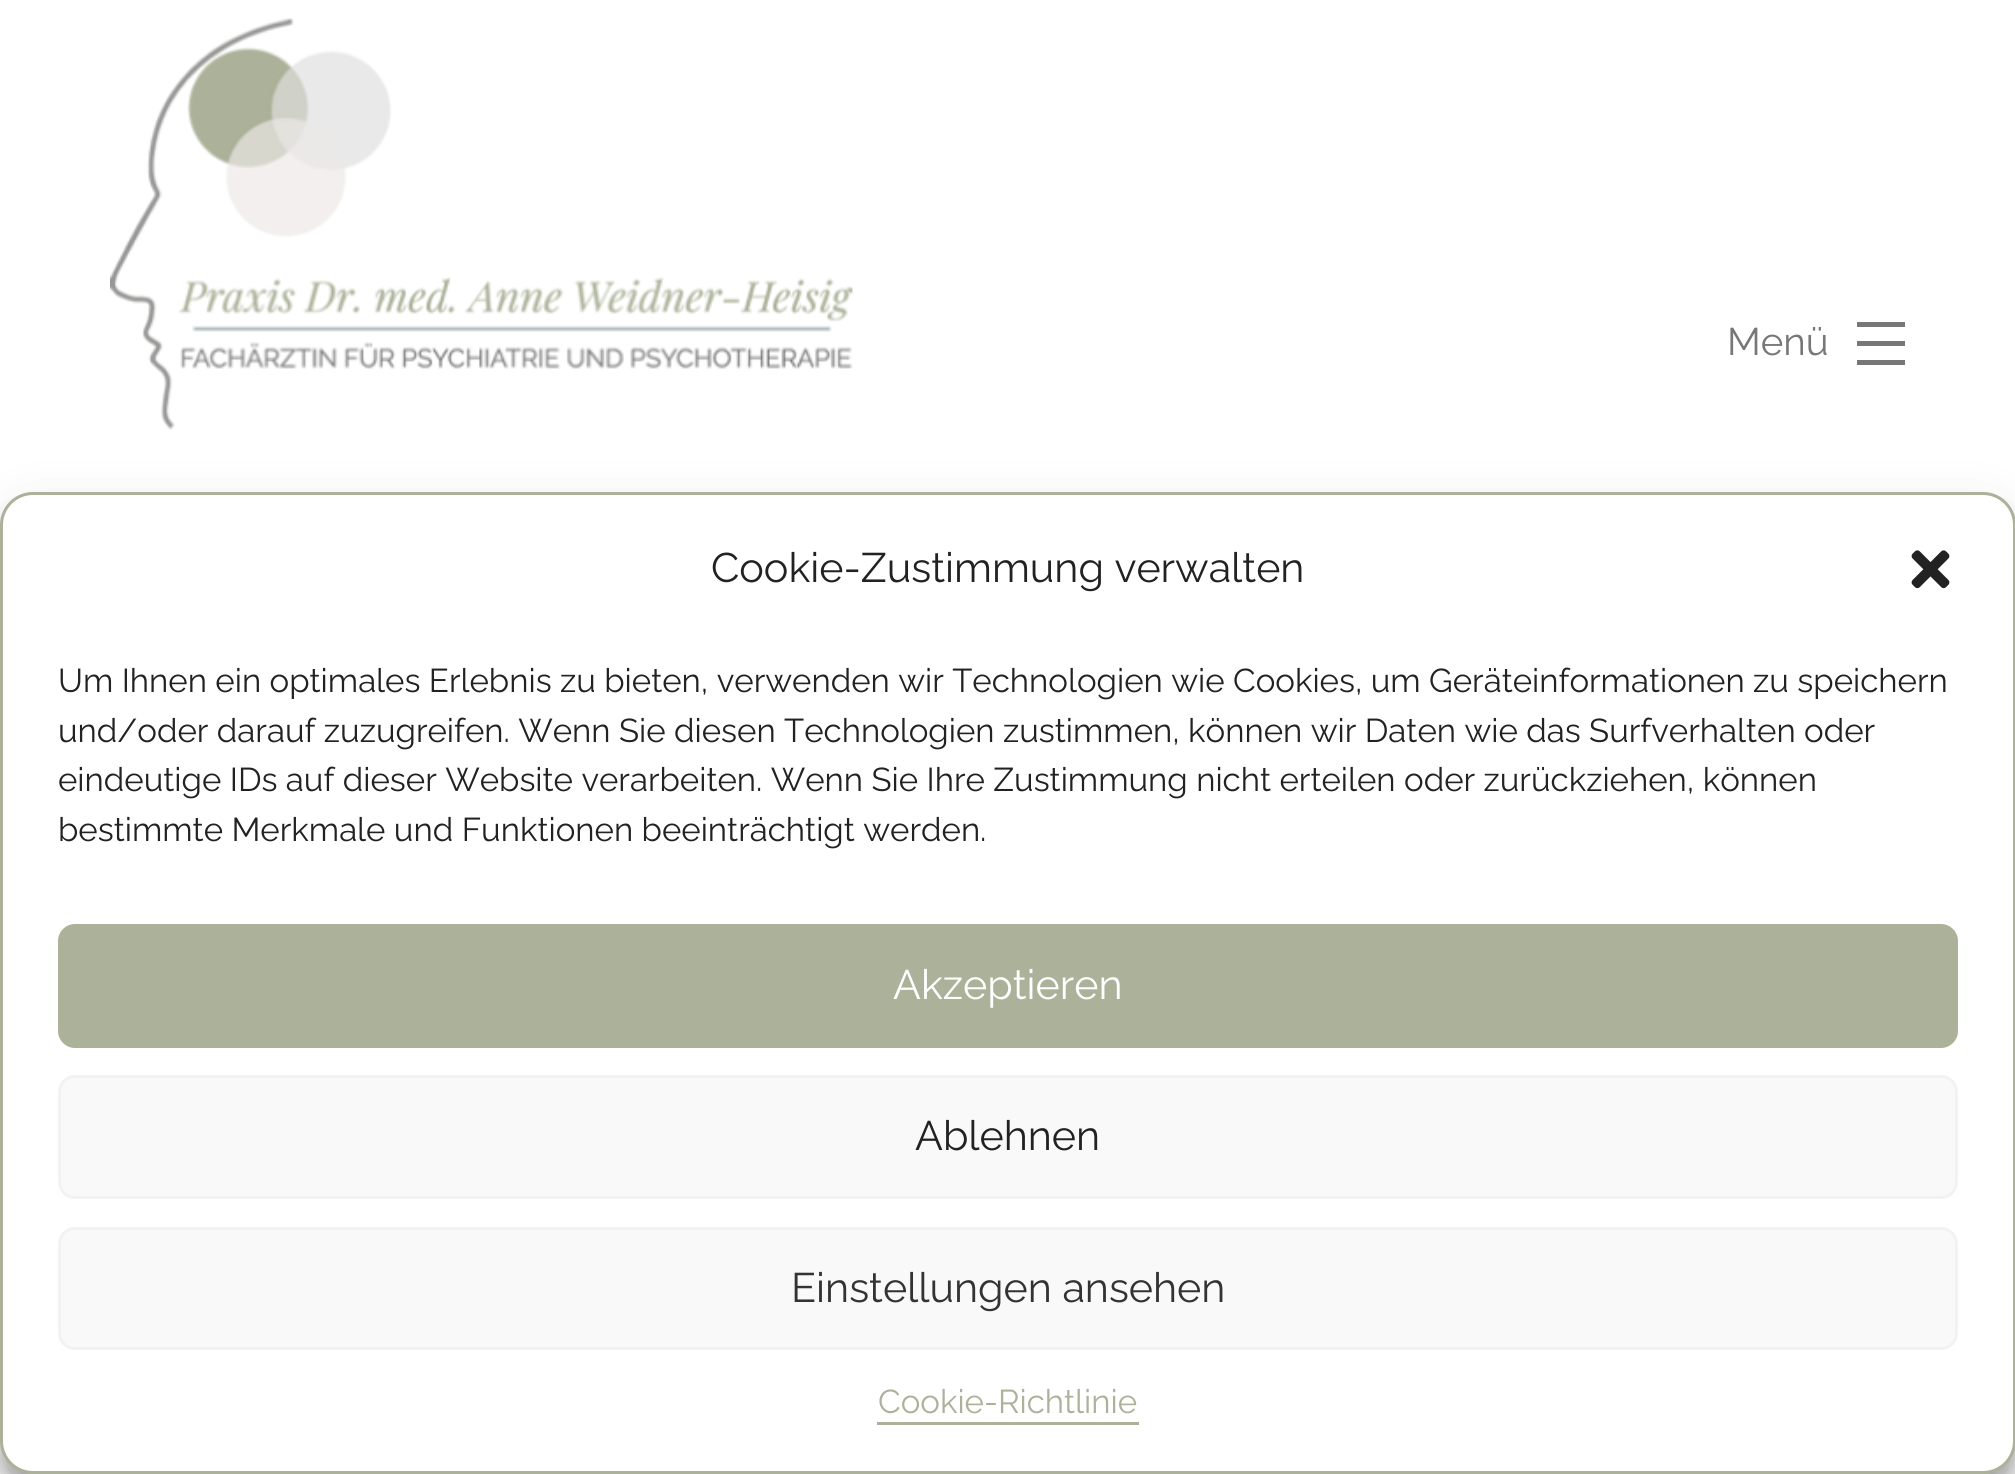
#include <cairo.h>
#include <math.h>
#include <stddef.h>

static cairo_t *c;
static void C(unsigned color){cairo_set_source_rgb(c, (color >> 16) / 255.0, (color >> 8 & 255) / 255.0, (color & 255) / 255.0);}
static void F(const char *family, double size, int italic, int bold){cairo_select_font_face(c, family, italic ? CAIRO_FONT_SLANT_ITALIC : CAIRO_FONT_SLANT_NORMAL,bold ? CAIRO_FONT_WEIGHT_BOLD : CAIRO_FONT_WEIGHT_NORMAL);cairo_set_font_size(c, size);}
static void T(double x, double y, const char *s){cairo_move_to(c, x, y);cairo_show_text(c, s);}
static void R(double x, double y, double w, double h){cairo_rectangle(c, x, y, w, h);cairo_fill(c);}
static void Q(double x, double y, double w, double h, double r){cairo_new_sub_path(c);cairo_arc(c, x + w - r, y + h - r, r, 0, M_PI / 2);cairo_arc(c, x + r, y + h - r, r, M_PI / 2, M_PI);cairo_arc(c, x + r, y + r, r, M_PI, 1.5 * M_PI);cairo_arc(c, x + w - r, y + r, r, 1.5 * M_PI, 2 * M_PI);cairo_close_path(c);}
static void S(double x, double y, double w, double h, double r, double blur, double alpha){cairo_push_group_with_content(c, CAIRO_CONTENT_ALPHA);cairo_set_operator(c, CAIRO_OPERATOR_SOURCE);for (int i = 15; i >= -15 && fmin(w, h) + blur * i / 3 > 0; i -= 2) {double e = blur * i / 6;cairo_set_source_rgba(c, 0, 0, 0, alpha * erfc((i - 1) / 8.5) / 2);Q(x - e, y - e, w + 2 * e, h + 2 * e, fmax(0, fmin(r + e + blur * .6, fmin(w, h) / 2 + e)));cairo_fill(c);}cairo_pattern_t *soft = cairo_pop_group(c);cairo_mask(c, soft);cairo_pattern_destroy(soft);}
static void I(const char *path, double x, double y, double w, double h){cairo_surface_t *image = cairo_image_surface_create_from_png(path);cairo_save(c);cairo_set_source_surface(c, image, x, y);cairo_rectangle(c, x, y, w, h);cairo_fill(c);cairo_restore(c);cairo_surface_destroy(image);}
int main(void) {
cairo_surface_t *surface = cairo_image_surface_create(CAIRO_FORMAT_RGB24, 2015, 1474);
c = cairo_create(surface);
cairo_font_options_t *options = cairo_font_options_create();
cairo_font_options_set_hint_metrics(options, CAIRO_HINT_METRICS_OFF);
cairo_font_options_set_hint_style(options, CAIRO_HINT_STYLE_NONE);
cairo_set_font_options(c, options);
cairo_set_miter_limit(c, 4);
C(0xffffff);
cairo_paint(c);
I("1.png",110,18,743,412);
F("Raleway",38.5,0,0);
C(0x777777);
T(1727,355,"Menü");
cairo_set_fill_rule(c,CAIRO_FILL_RULE_EVEN_ODD);
cairo_new_path(c);
cairo_move_to(c,1857,322);
cairo_line_to(c,1905,322);
cairo_line_to(c,1905,327);
cairo_line_to(c,1857,327);
cairo_close_path(c);
cairo_move_to(c,1857,341);
cairo_line_to(c,1905,341);
cairo_line_to(c,1905,346);
cairo_line_to(c,1857,346);
cairo_close_path(c);
cairo_move_to(c,1905,360);
cairo_line_to(c,1857,360);
cairo_line_to(c,1857,365);
cairo_line_to(c,1905,365);
cairo_close_path(c);
cairo_fill(c);
C(0x000000);
S(0,509,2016,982,33,8,.23);
S(0,520,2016,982,33,27.5,.19);
C(0xffffff);
Q(1.5,493.5,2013,979,31.5);
cairo_fill_preserve(c);
C(0xacb29a);
cairo_set_line_width(c,3);
cairo_stroke(c);
F("Raleway",41.25,0,0);
C(0x222222);
T(711,582,"Cookie-Zustimmung verwalten");
I("2.png",1911,550,39,39);
F("Raleway",33,0,0);
T(58,692,"Um Ihnen ein optimales Erlebnis zu bieten, verwenden wir Technologien wie Cookies, um Geräteinformationen zu speichern");
T(58,742,"und/oder darauf zuzugreifen. Wenn Sie diesen Technologien zustimmen, können wir Daten wie das Surfverhalten oder");
T(58,791,"eindeutige IDs auf dieser Website verarbeiten. Wenn Sie Ihre Zustimmung nicht erteilen oder zurückziehen, können");
T(58,841,"bestimmte Merkmale und Funktionen beeinträchtigt werden.");
C(0xacb29a);
Q(59.5,925.5,1897,121,15.5);
cairo_fill_preserve(c);
cairo_stroke(c);
F("Raleway",41.25,0,0);
C(0xffffff);
T(893,999,"Akzeptieren");
C(0xf9f9f9);
Q(59.5,1076.5,1897,121,15.5);
cairo_fill_preserve(c);
C(0xf2f2f2);
cairo_stroke(c);
C(0x222222);
T(915,1150,"Ablehnen");
C(0xf9f9f9);
Q(59.5,1228.5,1897,120,15.5);
cairo_fill_preserve(c);
C(0xf2f2f2);
cairo_stroke(c);
C(0x333333);
T(791,1302,"Einstellungen ansehen");
F("Raleway",33,0,0);
C(0xacb29a);
T(878,1413,"Cookie-Richtlinie");
R(877,1422,262,3);
cairo_surface_write_to_png(surface, "o.png");
cairo_font_options_destroy(options);
cairo_destroy(c);
cairo_surface_destroy(surface);
return 0;
}
